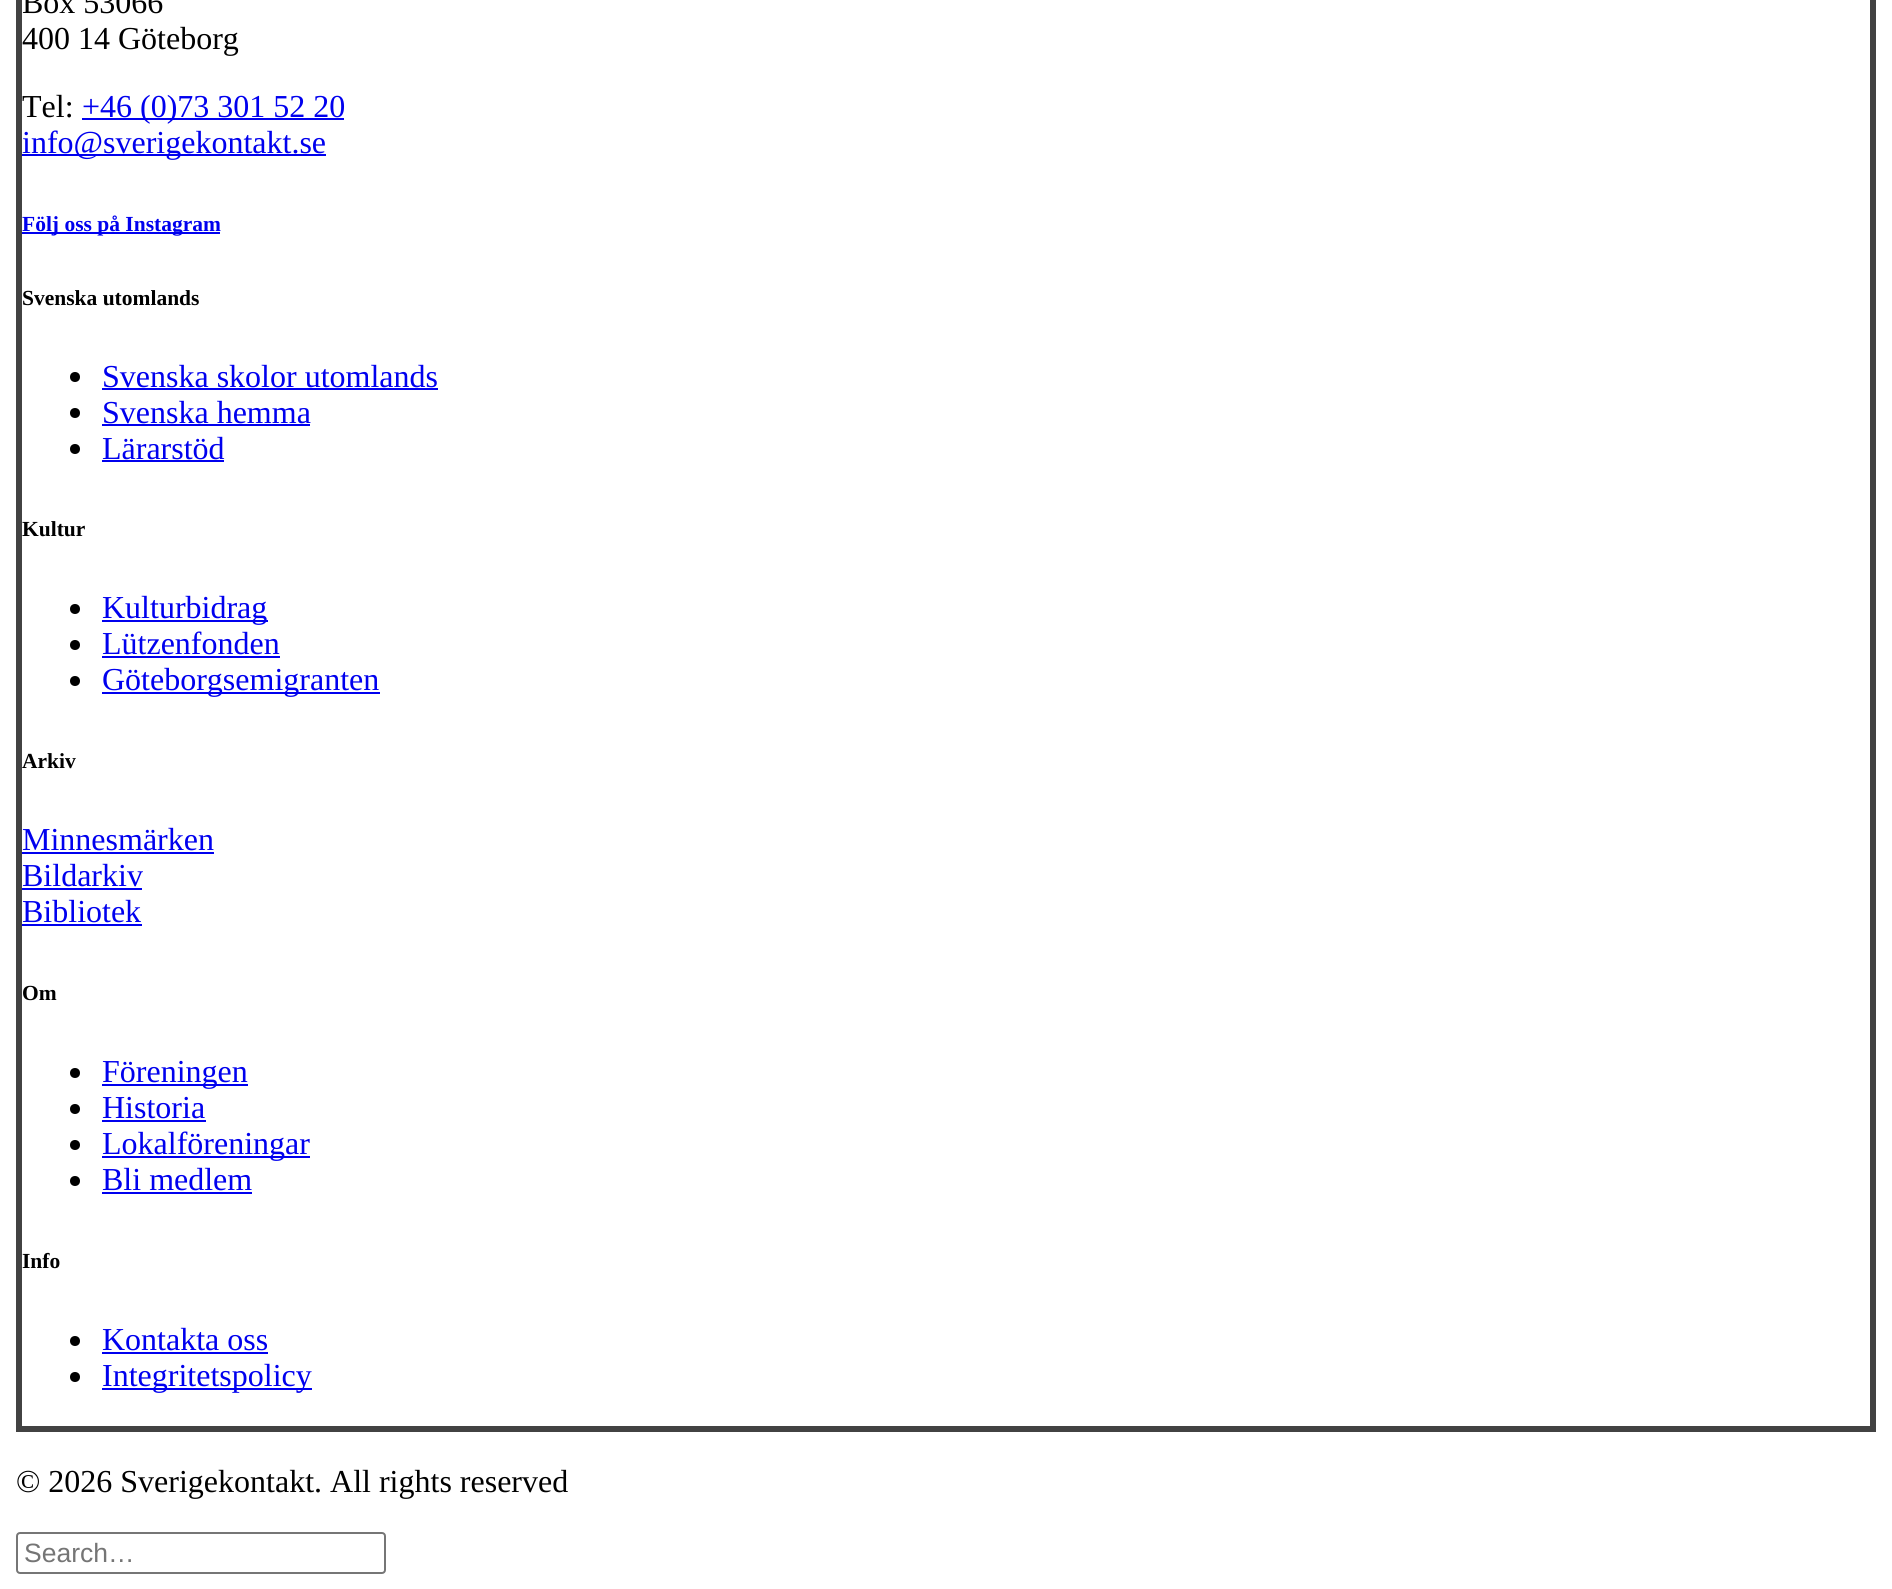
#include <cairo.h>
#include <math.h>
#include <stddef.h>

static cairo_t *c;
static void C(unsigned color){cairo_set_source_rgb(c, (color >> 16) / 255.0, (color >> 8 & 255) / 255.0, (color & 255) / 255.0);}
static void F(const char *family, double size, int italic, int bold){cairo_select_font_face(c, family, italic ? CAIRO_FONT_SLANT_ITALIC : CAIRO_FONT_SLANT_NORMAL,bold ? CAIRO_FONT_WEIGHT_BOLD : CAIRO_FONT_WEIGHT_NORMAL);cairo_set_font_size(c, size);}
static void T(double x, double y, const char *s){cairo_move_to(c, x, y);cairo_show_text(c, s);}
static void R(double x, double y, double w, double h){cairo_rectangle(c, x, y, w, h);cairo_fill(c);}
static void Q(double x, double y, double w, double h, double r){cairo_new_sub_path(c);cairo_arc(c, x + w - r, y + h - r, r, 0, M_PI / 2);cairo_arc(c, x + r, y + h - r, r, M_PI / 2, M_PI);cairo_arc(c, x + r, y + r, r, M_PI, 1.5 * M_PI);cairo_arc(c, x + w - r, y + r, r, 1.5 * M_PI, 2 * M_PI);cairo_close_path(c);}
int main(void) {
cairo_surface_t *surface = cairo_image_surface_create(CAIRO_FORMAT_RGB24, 1892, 1589);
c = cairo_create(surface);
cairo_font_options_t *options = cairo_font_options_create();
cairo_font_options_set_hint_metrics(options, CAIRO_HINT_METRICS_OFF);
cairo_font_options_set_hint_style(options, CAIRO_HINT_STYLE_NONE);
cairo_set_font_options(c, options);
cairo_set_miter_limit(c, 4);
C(0xffffff);
cairo_paint(c);
C(0x424242);
R(1870,0,6,1432);
R(16,1426,1860,6);
R(16,0,6,1432);
F("Liberation Serif",32,0,0);
C(0x000000);
T(22,13,"Box 53066");
T(22,49,"400 14 Göteborg");
T(22,117,"Tel:");
C(0x0000ee);
R(82,118,262,2);
T(82,117,"+46 (0)73 301 52 20");
R(22,154,304,2);
T(22,153,"info@sverigekontakt.se");
R(22,232,198,2);
F("Liberation Serif",21.5,0,1);
T(22,231,"Följ oss på Instagram");
C(0x000000);
T(22,305,"Svenska utomlands");
cairo_new_path(c);
cairo_arc(c,75,377,5,0,2 * M_PI);
cairo_fill(c);
F("Liberation Serif",32,0,0);
C(0x0000ee);
T(102,387,"Svenska skolor utomlands");
R(102,388,336,2);
C(0x000000);
cairo_new_path(c);
cairo_arc(c,75,413,5,0,2 * M_PI);
cairo_fill(c);
C(0x0000ee);
T(102,423,"Svenska hemma");
R(102,424,208,2);
C(0x000000);
cairo_new_path(c);
cairo_arc(c,75,449,5,0,2 * M_PI);
cairo_fill(c);
C(0x0000ee);
T(102,459,"Lärarstöd");
R(102,460,122,2);
F("Liberation Serif",21.5,0,1);
C(0x000000);
T(22,536,"Kultur");
cairo_new_path(c);
cairo_arc(c,75,609,5,0,2 * M_PI);
cairo_fill(c);
C(0x0000ee);
R(102,620,166,2);
F("Liberation Serif",32,0,0);
T(102,618,"Kulturbidrag");
C(0x000000);
cairo_new_path(c);
cairo_arc(c,75,645,5,0,2 * M_PI);
cairo_fill(c);
C(0x0000ee);
T(102,654,"Lützenfonden");
R(102,656,178,2);
C(0x000000);
cairo_new_path(c);
cairo_arc(c,75,681,5,0,2 * M_PI);
cairo_fill(c);
C(0x0000ee);
R(102,692,278,2);
T(102,690,"Göteborgsemigranten");
F("Liberation Serif",21.5,0,1);
C(0x000000);
T(22,768,"Arkiv");
F("Liberation Serif",32,0,0);
C(0x0000ee);
T(22,850,"Minnesmärken");
R(22,852,192,2);
T(22,886,"Bildarkiv");
R(22,888,120,2);
T(22,922,"Bibliotek");
R(22,924,120,2);
F("Liberation Serif",21.5,0,1);
C(0x000000);
T(22,1000,"Om");
cairo_new_path(c);
cairo_arc(c,75,1073,5,0,2 * M_PI);
cairo_fill(c);
C(0x0000ee);
R(102,1084,146,2);
F("Liberation Serif",32,0,0);
T(102,1082,"Föreningen");
C(0x000000);
cairo_new_path(c);
cairo_arc(c,75,1109,5,0,2 * M_PI);
cairo_fill(c);
C(0x0000ee);
T(102,1118,"Historia");
R(102,1120,104,2);
C(0x000000);
cairo_new_path(c);
cairo_arc(c,75,1145,5,0,2 * M_PI);
cairo_fill(c);
C(0x0000ee);
R(102,1156,208,2);
T(102,1154,"Lokalföreningar");
C(0x000000);
cairo_new_path(c);
cairo_arc(c,75,1181,5,0,2 * M_PI);
cairo_fill(c);
C(0x0000ee);
T(102,1190,"Bli medlem");
R(102,1192,150,2);
F("Liberation Serif",21.5,0,1);
C(0x000000);
T(22,1268,"Info");
cairo_new_path(c);
cairo_arc(c,75,1341,5,0,2 * M_PI);
cairo_fill(c);
F("Liberation Serif",32,0,0);
C(0x0000ee);
T(102,1350,"Kontakta oss");
R(102,1352,166,2);
C(0x000000);
cairo_new_path(c);
cairo_arc(c,75,1377,5,0,2 * M_PI);
cairo_fill(c);
C(0x0000ee);
R(102,1388,210,2);
T(102,1386,"Integritetspolicy");
C(0x000000);
T(16,1492,"© 2026 Sverigekontakt. All rights reserved");
Q(17,1533,368,40,3);
C(0x767676);
cairo_stroke(c);
F("Liberation Sans",26.5,0,0);
C(0x757575);
T(24,1562,"Search…");
cairo_surface_write_to_png(surface, "o.png");
cairo_font_options_destroy(options);
cairo_destroy(c);
cairo_surface_destroy(surface);
return 0;
}
